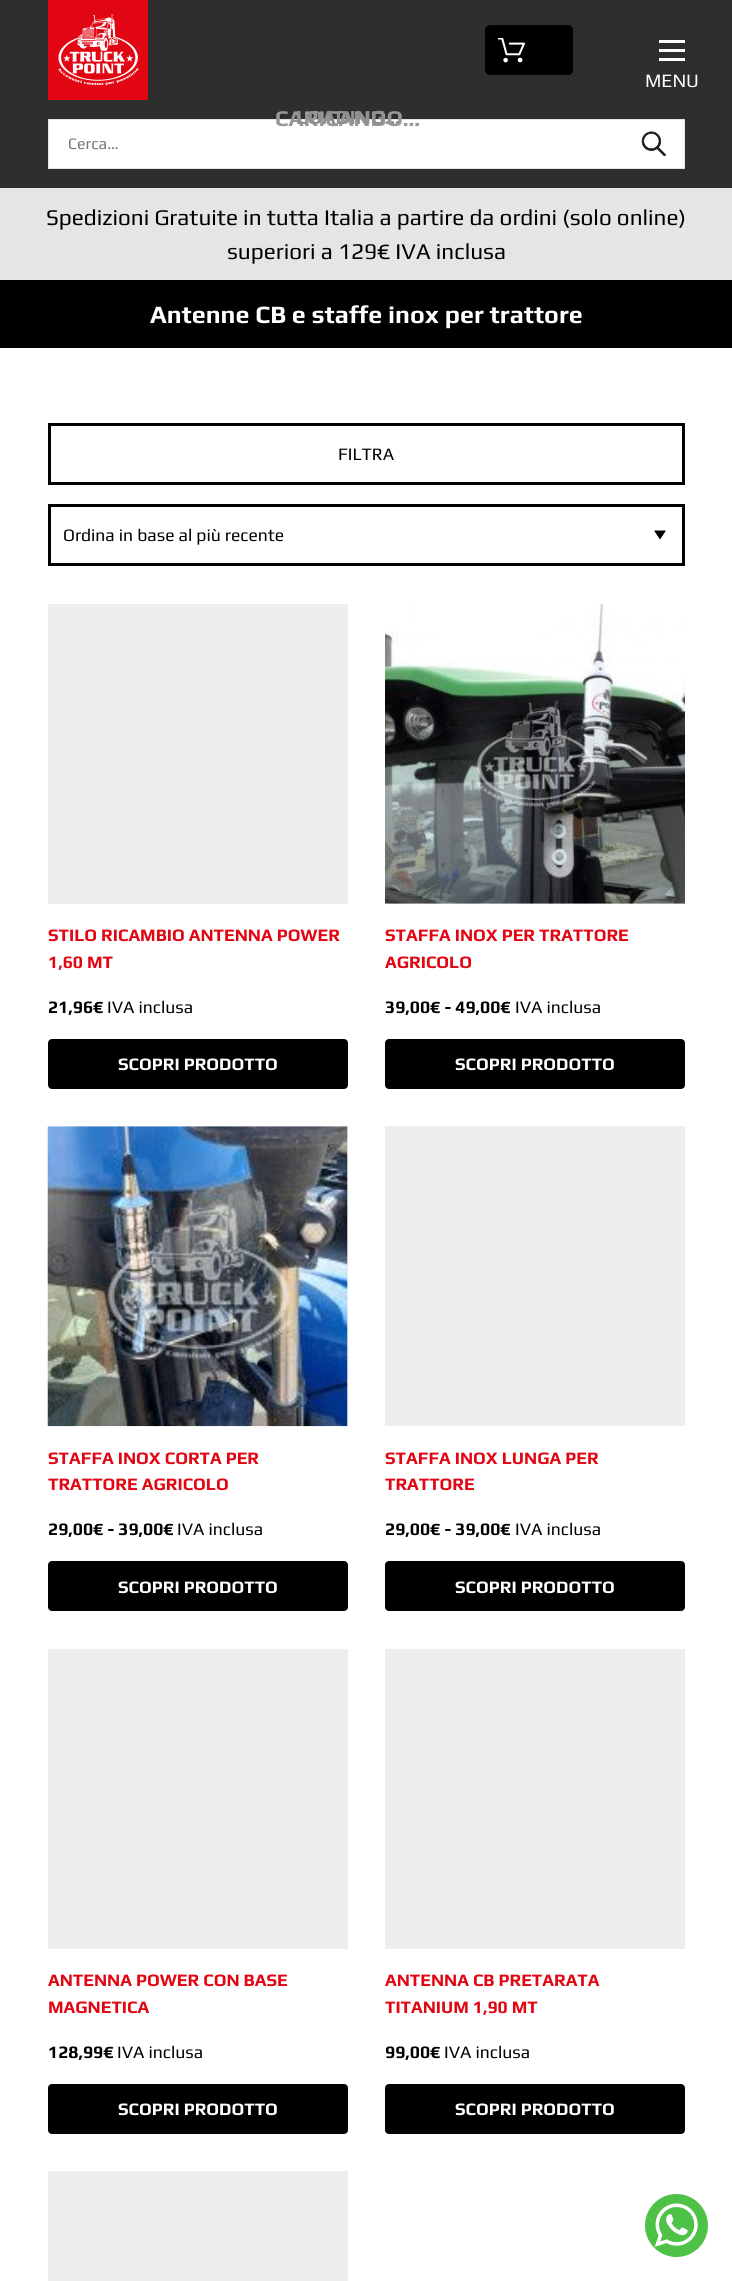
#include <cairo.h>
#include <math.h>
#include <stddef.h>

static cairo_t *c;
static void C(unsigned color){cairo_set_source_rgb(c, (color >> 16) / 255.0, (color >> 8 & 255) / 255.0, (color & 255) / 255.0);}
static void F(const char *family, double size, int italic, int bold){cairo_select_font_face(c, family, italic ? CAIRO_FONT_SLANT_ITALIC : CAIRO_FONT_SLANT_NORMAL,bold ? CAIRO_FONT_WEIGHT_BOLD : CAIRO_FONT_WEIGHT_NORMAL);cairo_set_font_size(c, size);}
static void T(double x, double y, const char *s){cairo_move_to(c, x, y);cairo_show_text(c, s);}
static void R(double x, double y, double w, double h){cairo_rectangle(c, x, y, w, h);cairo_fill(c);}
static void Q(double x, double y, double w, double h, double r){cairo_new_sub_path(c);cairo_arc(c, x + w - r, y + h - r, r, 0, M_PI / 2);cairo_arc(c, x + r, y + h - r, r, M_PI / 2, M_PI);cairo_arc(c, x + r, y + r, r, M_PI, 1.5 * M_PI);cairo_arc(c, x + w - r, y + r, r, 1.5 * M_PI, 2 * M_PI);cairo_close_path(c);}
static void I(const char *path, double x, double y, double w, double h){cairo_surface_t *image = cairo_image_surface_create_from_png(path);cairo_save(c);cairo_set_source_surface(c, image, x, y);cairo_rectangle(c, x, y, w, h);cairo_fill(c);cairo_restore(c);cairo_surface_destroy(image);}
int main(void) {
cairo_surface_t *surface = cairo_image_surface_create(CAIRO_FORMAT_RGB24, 732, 2281);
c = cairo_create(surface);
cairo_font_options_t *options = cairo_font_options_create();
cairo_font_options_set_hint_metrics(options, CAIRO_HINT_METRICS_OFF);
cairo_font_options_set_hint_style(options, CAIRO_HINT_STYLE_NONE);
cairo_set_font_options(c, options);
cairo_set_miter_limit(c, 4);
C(0xffffff);
cairo_paint(c);
C(0x2e2e2e);
R(0,0,732,188);
C(0xe20613);
R(48,0,100,100);
I("1.png",58,14,81,72);
C(0xffffff);
R(659,40,26,3);
R(659,49,26,3);
R(659,58,26,3);
F("Play",19,0,0);
T(645,87,"MENU");
C(0x000000);
Q(485,25,88,50,5);
cairo_fill(c);
I("2.png",498,38,27,25);
C(0xffffff);
cairo_rectangle(c,48.5,119.5,636,49);
cairo_fill_preserve(c);
C(0xe5e5e5);
cairo_set_line_width(c,1);
cairo_stroke(c);
F("Play",22.5,0,1);
C(0x989898);
T(275,126,"CARICANDO…");
F("Play",20,0,1);
C(0x8f8f8f);
T(296,124,"LOADING...");
F("Play",16,0,0);
C(0x757575);
T(68,149,"Cerca…");
I("3.png",641,131,25,25);
C(0xe5e5e5);
R(0,188,732,92);
F("Play",22.5,0,0);
C(0x000000);
T(46,225,"Spedizioni Gratuite in tutta Italia a partire da ordini (solo online)");
T(227,259,"superiori a 129€ IVA inclusa");
R(0,280,732,68);
F("Play",25,0,1);
C(0xffffff);
T(150,323,"Antenne CB e staffe inox per trattore");
cairo_rectangle(c,49.5,424.5,634,59);
C(0x000000);
cairo_set_line_width(c,3);
cairo_stroke(c);
F("Play",17.5,0,0);
T(338,460,"FILTRA");
cairo_rectangle(c,49.5,505.5,634,59);
cairo_stroke(c);
T(63,541,"Ordina in base al più recente");
cairo_new_path(c);
cairo_move_to(c,654,530.5);
cairo_line_to(c,666,530.5);
cairo_line_to(c,660,539.5);
cairo_close_path(c);
cairo_fill(c);
C(0xeeeeee);
R(48,604,300,300);
F("Play",17.5,0,1);
C(0xe20613);
T(48,941,"STILO RICAMBIO ANTENNA POWER");
T(48,968,"1,60 MT");
C(0x000000);
T(48,1013,"21,96€");
F("Play",17.5,0,0);
T(107,1013,"IVA inclusa");
Q(49.5,1040.5,297,47,2.5);
cairo_fill_preserve(c);
cairo_stroke(c);
F("Play",17.5,0,1);
C(0xffffff);
T(118,1070,"SCOPRI PRODOTTO");
C(0xeeeeee);
R(385,903,300,1);
I("4.png",385,604,300,300);
C(0xe20613);
T(385,941,"STAFFA INOX PER TRATTORE");
T(385,968,"AGRICOLO");
C(0x000000);
T(385,1013,"39,00€ - 49,00€");
F("Play",17.5,0,0);
T(515,1013,"IVA inclusa");
Q(386.5,1040.5,297,47,2.5);
cairo_fill_preserve(c);
cairo_stroke(c);
F("Play",17.5,0,1);
C(0xffffff);
T(455,1070,"SCOPRI PRODOTTO");
C(0xeeeeee);
R(48,1126,300,300);
I("5.png",47,1126,301,301);
C(0xe20613);
T(48,1464,"STAFFA INOX CORTA PER");
T(48,1490,"TRATTORE AGRICOLO");
C(0x000000);
T(48,1535,"29,00€ - 39,00€");
F("Play",17.5,0,0);
T(177,1535,"IVA inclusa");
Q(49.5,1562.5,297,47,2.5);
cairo_fill_preserve(c);
cairo_stroke(c);
F("Play",17.5,0,1);
C(0xffffff);
T(118,1593,"SCOPRI PRODOTTO");
C(0xeeeeee);
R(385,1126,300,300);
C(0xe20613);
T(385,1464,"STAFFA INOX LUNGA PER");
T(385,1490,"TRATTORE");
C(0x000000);
T(385,1535,"29,00€ - 39,00€");
F("Play",17.5,0,0);
T(515,1535,"IVA inclusa");
Q(386.5,1562.5,297,47,2.5);
cairo_fill_preserve(c);
cairo_stroke(c);
F("Play",17.5,0,1);
C(0xffffff);
T(455,1593,"SCOPRI PRODOTTO");
C(0xeeeeee);
R(48,1649,300,300);
C(0xe20613);
T(48,1986,"ANTENNA POWER CON BASE");
T(48,2013,"MAGNETICA");
C(0x000000);
T(48,2058,"128,99€");
F("Play",17.5,0,0);
T(117,2058,"IVA inclusa");
Q(49.5,2085.5,297,47,2.5);
cairo_fill_preserve(c);
cairo_stroke(c);
F("Play",17.5,0,1);
C(0xffffff);
T(118,2115,"SCOPRI PRODOTTO");
C(0xeeeeee);
R(385,1649,300,300);
C(0xe20613);
T(385,1986,"ANTENNA CB PRETARATA");
T(385,2013,"TITANIUM 1,90 MT");
C(0x000000);
T(385,2058,"99,00€");
F("Play",17.5,0,0);
T(444,2058,"IVA inclusa");
Q(386.5,2085.5,297,47,2.5);
cairo_fill_preserve(c);
cairo_stroke(c);
F("Play",17.5,0,1);
C(0xffffff);
T(455,2115,"SCOPRI PRODOTTO");
C(0xeeeeee);
R(48,2171,300,110);
C(0x4dc247);
cairo_new_path(c);
cairo_arc(c,676.5,2225.5,34.5,0,2 * M_PI);
cairo_fill_preserve(c);
C(0xffffff);
cairo_set_line_width(c,6);
cairo_stroke(c);
I("6.png",654,2203,44,44);
cairo_surface_write_to_png(surface, "o.png");
cairo_font_options_destroy(options);
cairo_destroy(c);
cairo_surface_destroy(surface);
return 0;
}
